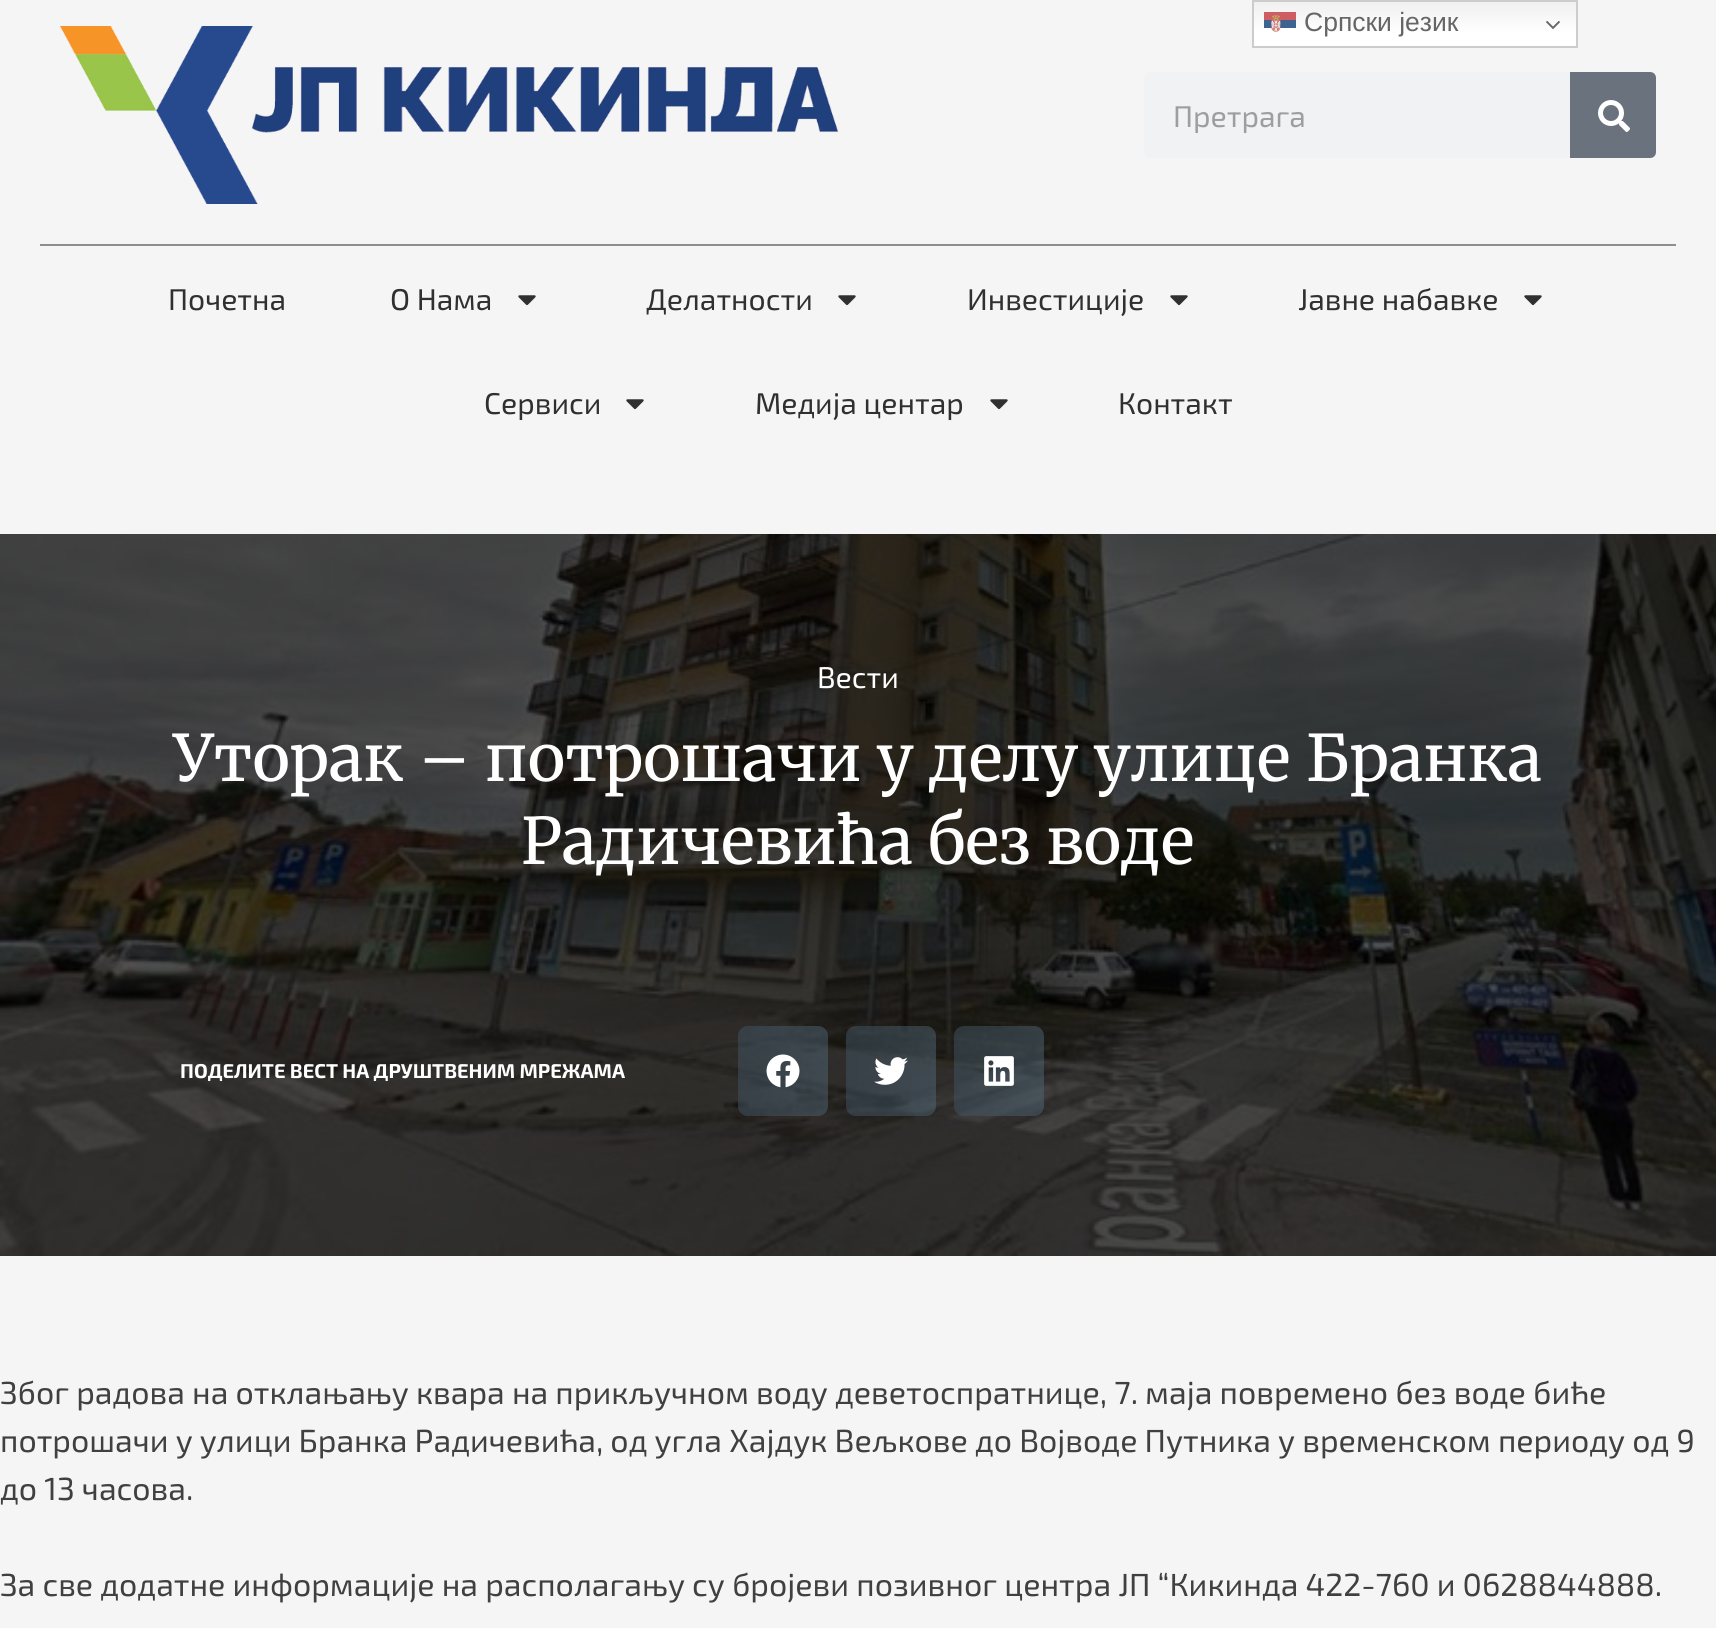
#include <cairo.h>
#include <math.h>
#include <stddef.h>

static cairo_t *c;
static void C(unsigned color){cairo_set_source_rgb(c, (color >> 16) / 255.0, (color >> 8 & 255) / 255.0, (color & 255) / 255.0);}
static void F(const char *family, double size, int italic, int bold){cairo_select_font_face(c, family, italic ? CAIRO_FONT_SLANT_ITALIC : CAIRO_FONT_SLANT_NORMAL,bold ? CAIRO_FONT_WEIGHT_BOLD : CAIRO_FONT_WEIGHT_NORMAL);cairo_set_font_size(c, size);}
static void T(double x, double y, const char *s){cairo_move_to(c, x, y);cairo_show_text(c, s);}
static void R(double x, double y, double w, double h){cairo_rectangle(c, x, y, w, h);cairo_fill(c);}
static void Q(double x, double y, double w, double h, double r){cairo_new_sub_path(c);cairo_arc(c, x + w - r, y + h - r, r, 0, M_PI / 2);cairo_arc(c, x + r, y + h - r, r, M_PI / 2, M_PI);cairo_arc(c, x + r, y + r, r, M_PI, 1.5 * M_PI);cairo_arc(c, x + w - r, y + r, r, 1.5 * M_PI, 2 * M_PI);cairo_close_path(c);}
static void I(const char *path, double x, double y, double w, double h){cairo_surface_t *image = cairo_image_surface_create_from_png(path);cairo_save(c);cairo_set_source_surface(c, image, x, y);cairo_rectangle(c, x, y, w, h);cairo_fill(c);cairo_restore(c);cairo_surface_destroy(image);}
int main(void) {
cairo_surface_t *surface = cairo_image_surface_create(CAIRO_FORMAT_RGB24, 1716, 1628);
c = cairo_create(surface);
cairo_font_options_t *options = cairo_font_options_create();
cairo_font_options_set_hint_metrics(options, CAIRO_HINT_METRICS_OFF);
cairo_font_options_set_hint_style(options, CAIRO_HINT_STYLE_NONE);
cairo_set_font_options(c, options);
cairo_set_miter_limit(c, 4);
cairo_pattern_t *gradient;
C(0xf5f5f5);
cairo_paint(c);
gradient = cairo_pattern_create_linear(1415,0,1415,48);
cairo_pattern_add_color_stop_rgba(gradient,0,0.937,0.937,0.937,1);
cairo_pattern_add_color_stop_rgba(gradient,.7,1,1,1,1);
cairo_set_source(c,gradient);
cairo_pattern_destroy(gradient);
R(1254,2,322,44);
cairo_rectangle(c,1253,1,324,46);
C(0xcccccc);
cairo_stroke(c);
I("1.png",1264,12,32,20);
F("Liberation Sans",26.5,0,0);
C(0x666666);
T(1304,31,"Српски језик");
I("2.png",1546,21,14,8);
I("3.png",60,26,778,178);
C(0xf1f2f3);
Q(1144,72,512,86,6);
cairo_fill(c);
F("Exo 2",30,0,0);
C(0x9e9e9e);
T(1173,127,"Претрага");
C(0x69727d);
cairo_new_path(c);
cairo_move_to(c,1570,72);
cairo_line_to(c,1650,72);
cairo_curve_to(c,1653.5,72,1656,74.5,1656,78);
cairo_line_to(c,1656,152);
cairo_curve_to(c,1656,155.5,1653.5,158,1650,158);
cairo_line_to(c,1570,158);
cairo_close_path(c);
cairo_fill(c);
I("4.png",1598,100,32,32);
C(0x8e8e8e);
R(40,244,1636,2);
C(0x303030);
T(168,310,"Почетна");
T(390,310,"О Нама");
I("5.png",518,295,18,11);
T(646,310,"Делатности");
I("5.png",838,295,18,11);
T(967,310,"Инвестиције");
I("5.png",1170,295,18,11);
T(1298,310,"Јавне набавке");
I("5.png",1524,295,18,11);
T(484,414,"Сервиси");
I("5.png",626,399,18,11);
T(755,414,"Медија центар");
I("5.png",990,399,18,11);
T(1118,414,"Контакт");
I("6.png",0,534,1716,722);
C(0xffffff);
T(817,688,"Вести");
F("Merriweather",64,0,0);
T(173,781,"Уторак – потрошачи у делу улице Бранка");
T(521,864,"Радичевића без воде");
F("Exo 2",20,0,1);
T(180,1078,"ПОДЕЛИТЕ ВЕСТ НА ДРУШТВЕНИМ МРЕЖАМА");
cairo_set_source_rgba(c,0.329,0.424,0.486,0.46);
Q(738,1026,90,90,10);
cairo_fill(c);
gradient = cairo_pattern_create_linear(738,1071,828,1071);
cairo_pattern_add_color_stop_rgba(gradient,0,0,0,0,.12);
cairo_pattern_add_color_stop_rgba(gradient,1,0,0,0,0);
cairo_set_source(c,gradient);
cairo_pattern_destroy(gradient);
Q(738,1026,90,90,10);
cairo_fill(c);
I("7.png",766,1054,34,34);
cairo_set_source_rgba(c,0.329,0.424,0.486,0.46);
Q(846,1026,90,90,10);
cairo_fill(c);
gradient = cairo_pattern_create_linear(846,1071,936,1071);
cairo_pattern_add_color_stop_rgba(gradient,0,0,0,0,.12);
cairo_pattern_add_color_stop_rgba(gradient,1,0,0,0,0);
cairo_set_source(c,gradient);
cairo_pattern_destroy(gradient);
Q(846,1026,90,90,10);
cairo_fill(c);
I("8.png",874,1057,34,28);
cairo_set_source_rgba(c,0.329,0.424,0.486,0.46);
Q(954,1026,90,90,10);
cairo_fill(c);
gradient = cairo_pattern_create_linear(954,1071,1044,1071);
cairo_pattern_add_color_stop_rgba(gradient,0,0,0,0,.12);
cairo_pattern_add_color_stop_rgba(gradient,1,0,0,0,0);
cairo_set_source(c,gradient);
cairo_pattern_destroy(gradient);
Q(954,1026,90,90,10);
cairo_fill(c);
I("9.png",984,1056,30,30);
F("Exo 2",32,0,0);
C(0x404040);
T(0,1404,"Због радова на отклањању квара на прикључном воду деветоспратнице, 7. маја повремено без воде биће");
T(0,1452,"потрошачи у улици Бранка Радичевића, од угла Хајдук Вељкове до Војводе Путника у временском периоду од 9");
T(0,1500,"до 13 часова.");
T(0,1596,"За све додатне информације на располагању су бројеви позивног центра ЈП “Кикинда 422-760 и 0628844888.");
cairo_surface_write_to_png(surface, "o.png");
cairo_font_options_destroy(options);
cairo_destroy(c);
cairo_surface_destroy(surface);
return 0;
}
